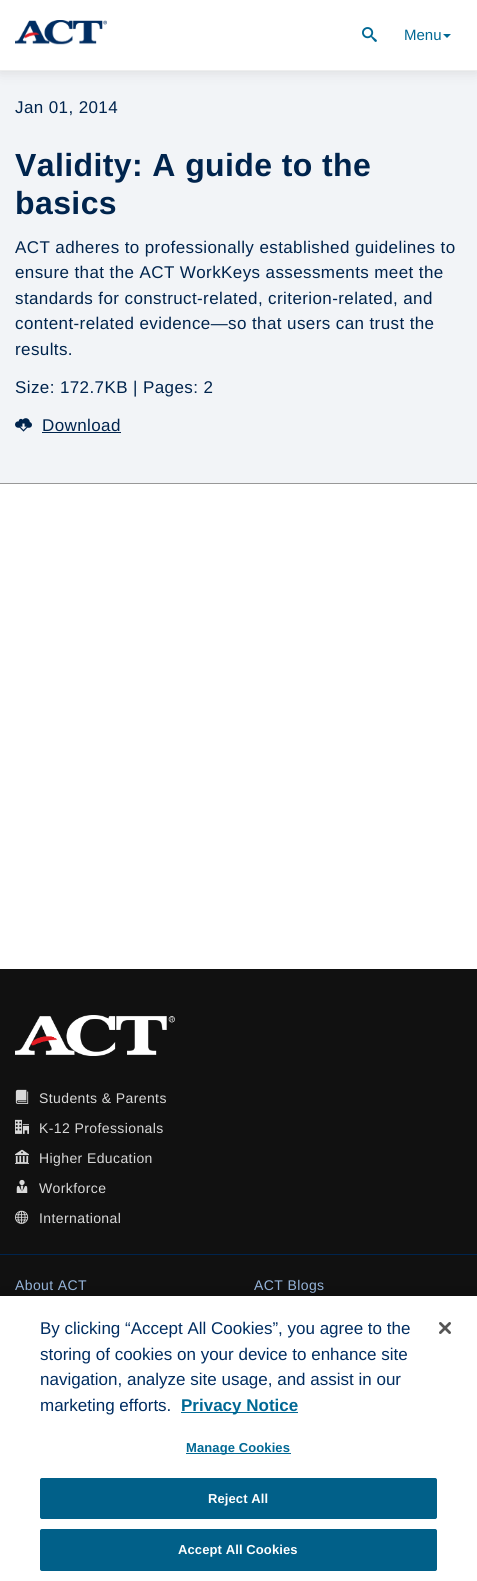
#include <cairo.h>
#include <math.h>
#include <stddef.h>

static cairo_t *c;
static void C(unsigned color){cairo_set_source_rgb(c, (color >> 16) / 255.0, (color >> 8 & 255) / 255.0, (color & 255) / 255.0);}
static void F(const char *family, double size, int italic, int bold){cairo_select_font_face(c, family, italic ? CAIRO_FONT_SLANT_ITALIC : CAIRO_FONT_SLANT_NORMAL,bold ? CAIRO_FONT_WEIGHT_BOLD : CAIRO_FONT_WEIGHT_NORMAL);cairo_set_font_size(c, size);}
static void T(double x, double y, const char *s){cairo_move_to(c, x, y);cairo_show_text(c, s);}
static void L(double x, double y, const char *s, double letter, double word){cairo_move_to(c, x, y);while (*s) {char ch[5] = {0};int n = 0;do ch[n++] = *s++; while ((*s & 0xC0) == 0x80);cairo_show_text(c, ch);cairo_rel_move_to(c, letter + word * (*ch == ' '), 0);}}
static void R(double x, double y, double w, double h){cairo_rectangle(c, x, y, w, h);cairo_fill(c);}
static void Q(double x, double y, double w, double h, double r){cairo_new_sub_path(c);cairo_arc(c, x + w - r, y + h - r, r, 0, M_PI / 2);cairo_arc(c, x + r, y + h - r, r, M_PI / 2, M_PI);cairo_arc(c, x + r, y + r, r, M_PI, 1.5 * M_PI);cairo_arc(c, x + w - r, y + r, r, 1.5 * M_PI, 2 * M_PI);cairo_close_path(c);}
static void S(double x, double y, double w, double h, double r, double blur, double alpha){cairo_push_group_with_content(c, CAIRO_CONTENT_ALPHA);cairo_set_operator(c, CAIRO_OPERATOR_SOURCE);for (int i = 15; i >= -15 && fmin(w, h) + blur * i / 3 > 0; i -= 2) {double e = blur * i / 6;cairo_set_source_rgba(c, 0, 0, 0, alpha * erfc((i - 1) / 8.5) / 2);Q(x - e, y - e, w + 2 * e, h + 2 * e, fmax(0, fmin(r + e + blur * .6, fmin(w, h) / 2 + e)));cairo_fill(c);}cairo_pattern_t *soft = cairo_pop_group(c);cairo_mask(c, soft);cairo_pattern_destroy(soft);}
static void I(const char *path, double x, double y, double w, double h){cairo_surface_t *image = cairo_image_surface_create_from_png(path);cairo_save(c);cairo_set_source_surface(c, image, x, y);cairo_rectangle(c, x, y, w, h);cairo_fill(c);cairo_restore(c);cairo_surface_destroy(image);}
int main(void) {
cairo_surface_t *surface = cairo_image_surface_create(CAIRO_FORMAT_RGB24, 477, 1581);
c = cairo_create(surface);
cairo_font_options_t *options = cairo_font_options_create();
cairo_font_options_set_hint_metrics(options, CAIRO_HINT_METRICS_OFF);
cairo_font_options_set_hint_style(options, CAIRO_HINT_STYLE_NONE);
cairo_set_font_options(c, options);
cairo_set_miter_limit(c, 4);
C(0xffffff);
cairo_paint(c);
C(0xf2f4f7);
R(0,71,477,412);
C(0x000000);
S(0,0,477,71,0,7.5,.12);
C(0xffffff);
R(0,0,477,70);
C(0xeeeeee);
R(0,70,477,1);
I("1.png",15,20,92,25);
I("2.png",362,27,15,15);
F("Liberation Sans",15,0,0);
C(0x006894);
T(404,40,"Menu");
cairo_new_path(c);
cairo_move_to(c,443,34);
cairo_line_to(c,451,34);
cairo_line_to(c,447,38);
cairo_close_path(c);
cairo_fill(c);
C(0x989898);
R(0,483,477,1);
F("Liberation Sans",17,0,0);
C(0x00244d);
L(15,113,"Jan 01, 2014",.4,0);
F("Liberation Sans",32,0,1);
L(15,176,"Validity: A guide to the",.4,0);
L(15,214,"basics",.4,0);
F("Liberation Sans",17,0,0);
L(15,253,"ACT adheres to professionally established guidelines to",.4,0);
L(15,278,"ensure that the ACT WorkKeys assessments meet the",.4,0);
L(15,304,"standards for construct-related, criterion-related, and",.4,0);
L(15,329,"content-related evidence—so that users can trust the",.4,0);
L(15,355,"results.",.4,0);
L(15,393,"Size: 172.7KB | Pages: 2",.4,0);
I("3.png",15,418,17,14);
L(42,431,"Download",.4,0);
R(42,432,79,1);
C(0x111111);
R(0,969,477,327);
I("4.png",15,1015,160,41);
C(0x00244d);
R(0,1254,477,1);
I("5.png",15,1089,14,15);
F("Liberation Sans",14,0,0);
C(0xd9d9d9);
L(39,1103,"Students & Parents",.4,0);
I("6.png",15,1119,14,15);
L(39,1133,"K-12 Professionals",.4,0);
I("7.png",15,1149,14,15);
L(39,1163,"Higher Education",.4,0);
I("8.png",16,1179,12,14);
L(39,1193,"Workforce",.4,0);
I("9.png",15,1210,14,14);
L(39,1223,"International",.4,0);
C(0x99b8de);
L(15,1290,"About ACT",.4,0);
L(254,1290,"ACT Blogs",.4,0);
C(0x000000);
S(0,1296,477,285,0,9,.2);
C(0xffffff);
R(0,1296,477,285);
F("Liberation Sans",17,0,0);
C(0x002d61);
T(40,1334,"By clicking “Accept All Cookies”, you agree to the");
T(40,1360,"storing of cookies on your device to enhance site");
T(40,1385,"navigation, analyze site usage, and assist in our");
T(40,1411,"marketing efforts.");
C(0x006894);
R(181,1412,117,1);
F("Liberation Sans",17,0,1);
T(181,1411,"Privacy Notice");
R(186,1453,105,1);
F("Liberation Sans",13,0,1);
L(186,1452,"Manage Cookies",.1,0);
C(0x016089);
Q(40.5,1478.5,396,40,1.5);
cairo_fill_preserve(c);
cairo_set_line_width(c,1);
cairo_stroke(c);
C(0xffffff);
L(208,1503,"Reject All",.1,0);
C(0x016089);
Q(40.5,1529.5,396,41,1.5);
cairo_fill_preserve(c);
cairo_stroke(c);
C(0xffffff);
L(178,1554,"Accept All Cookies",.1,0);
I("10.png",439,1322,12,12);
cairo_surface_write_to_png(surface, "o.png");
cairo_font_options_destroy(options);
cairo_destroy(c);
cairo_surface_destroy(surface);
return 0;
}
